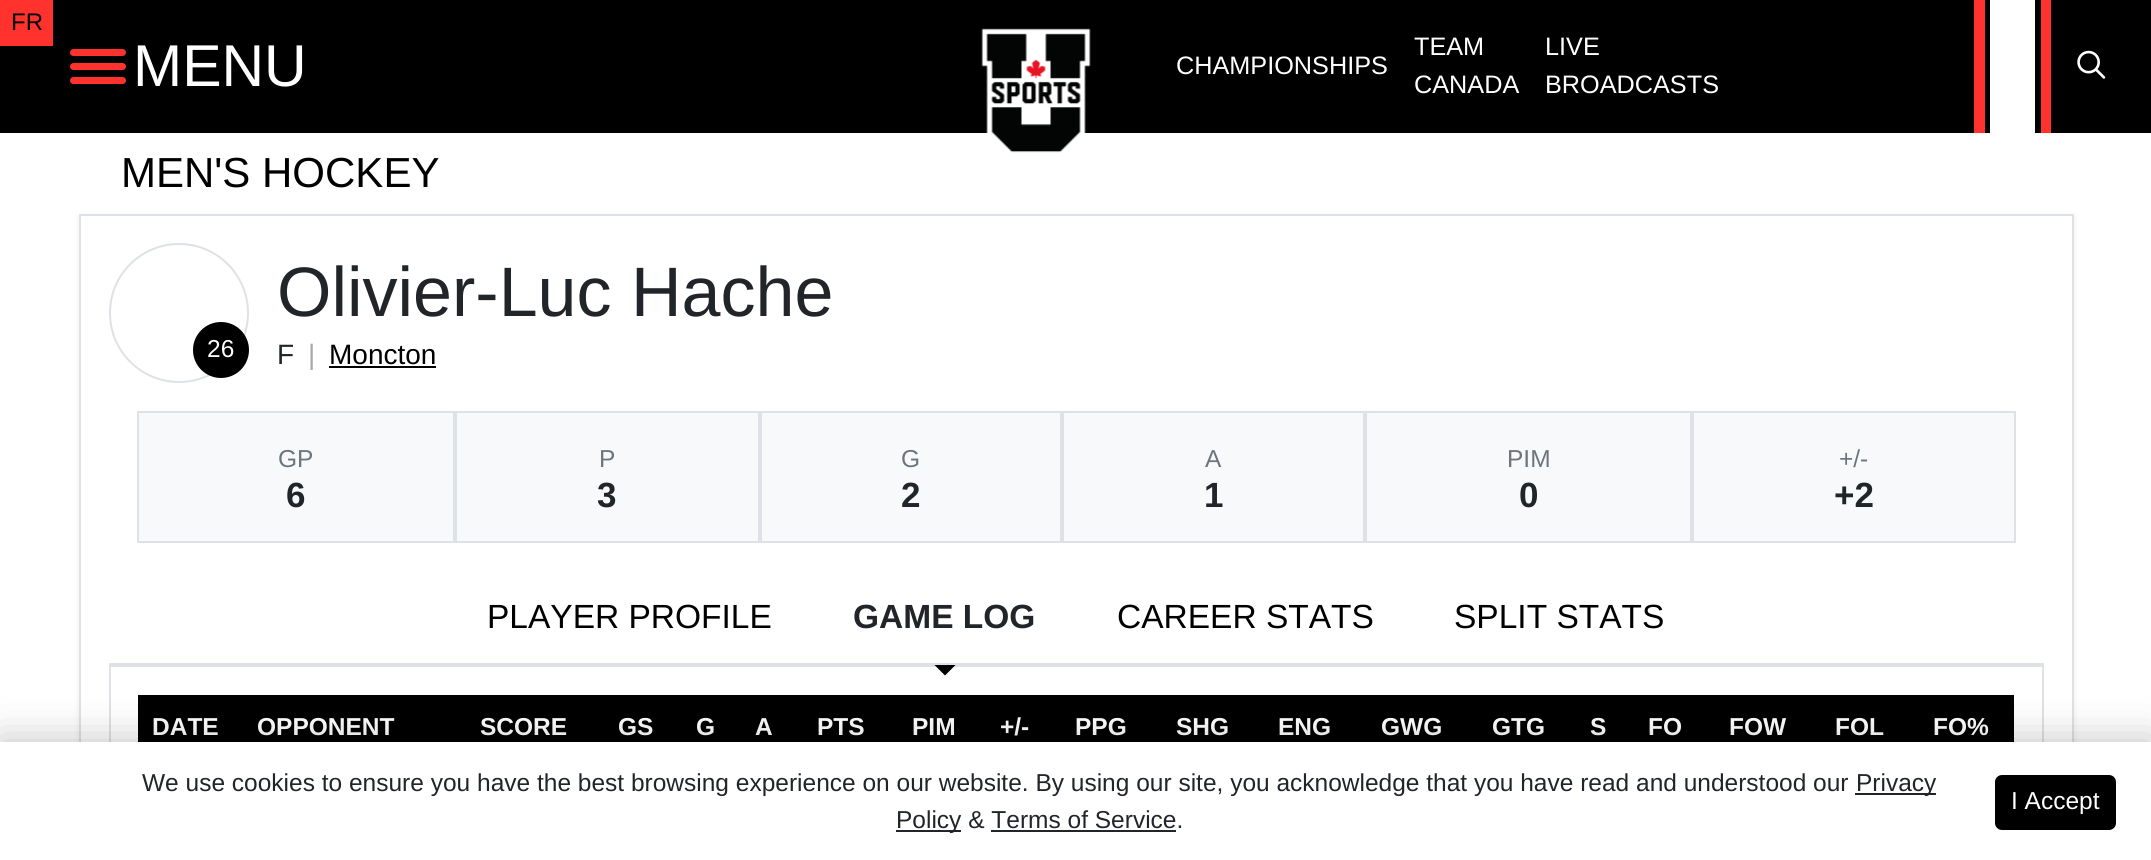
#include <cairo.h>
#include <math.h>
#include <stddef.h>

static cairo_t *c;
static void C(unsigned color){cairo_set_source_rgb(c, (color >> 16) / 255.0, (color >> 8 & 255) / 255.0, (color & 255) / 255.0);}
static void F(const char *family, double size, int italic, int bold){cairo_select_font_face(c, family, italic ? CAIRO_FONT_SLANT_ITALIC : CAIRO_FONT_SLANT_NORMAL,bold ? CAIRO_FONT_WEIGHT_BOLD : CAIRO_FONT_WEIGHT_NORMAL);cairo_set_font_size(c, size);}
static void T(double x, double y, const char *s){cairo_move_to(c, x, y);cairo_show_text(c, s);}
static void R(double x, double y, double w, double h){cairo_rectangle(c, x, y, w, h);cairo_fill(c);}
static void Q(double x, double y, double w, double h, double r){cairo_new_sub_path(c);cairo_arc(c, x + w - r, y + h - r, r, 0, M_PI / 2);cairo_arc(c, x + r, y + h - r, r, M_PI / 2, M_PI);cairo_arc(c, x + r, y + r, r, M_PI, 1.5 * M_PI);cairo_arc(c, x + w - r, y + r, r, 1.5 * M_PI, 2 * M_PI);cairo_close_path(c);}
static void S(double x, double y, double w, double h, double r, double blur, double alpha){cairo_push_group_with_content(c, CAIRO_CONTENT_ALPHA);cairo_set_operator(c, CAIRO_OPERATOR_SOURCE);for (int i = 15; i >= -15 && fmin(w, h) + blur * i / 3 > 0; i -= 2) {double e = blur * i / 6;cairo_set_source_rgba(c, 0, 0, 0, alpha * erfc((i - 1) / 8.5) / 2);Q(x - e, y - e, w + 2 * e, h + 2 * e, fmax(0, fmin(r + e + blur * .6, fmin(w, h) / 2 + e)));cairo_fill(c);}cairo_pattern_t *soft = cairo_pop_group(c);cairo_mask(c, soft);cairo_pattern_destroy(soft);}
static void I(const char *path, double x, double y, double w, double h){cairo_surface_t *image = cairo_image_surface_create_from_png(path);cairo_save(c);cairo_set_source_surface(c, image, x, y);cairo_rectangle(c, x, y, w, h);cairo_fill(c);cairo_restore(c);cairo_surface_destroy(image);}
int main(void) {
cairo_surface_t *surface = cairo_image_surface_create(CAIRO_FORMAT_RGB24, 2151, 860);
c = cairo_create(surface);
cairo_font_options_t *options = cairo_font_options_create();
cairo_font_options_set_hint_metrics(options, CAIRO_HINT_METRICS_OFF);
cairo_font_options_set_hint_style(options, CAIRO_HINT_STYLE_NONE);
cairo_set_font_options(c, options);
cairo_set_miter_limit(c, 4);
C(0xffffff);
cairo_paint(c);
C(0x000000);
R(0,0,2151,133);
C(0xff322d);
R(0,0,53,46);
F("Liberation Sans",24,0,0);
C(0x000000);
T(11,30,"FR");
C(0xff322d);
Q(70,49,56,7,3.5);
cairo_fill(c);
Q(70,63,56,7,3.5);
cairo_fill(c);
Q(70,77,56,7,3.5);
cairo_fill(c);
F("Liberation Sans",59,0,0);
C(0xffffff);
T(133,86,"MENU");
I("1.png",981,28,110,125);
F("Liberation Sans",25.25,0,0);
T(1176,74,"CHAMPIONSHIPS");
T(1414,55,"TEAM");
T(1414,93,"CANADA");
T(1545,55,"LIVE");
T(1545,93,"BROADCASTS");
C(0xff322d);
R(2041,0,10,133);
R(1974,0,11,133);
C(0xffffff);
R(1990,0,45,133);
I("2.png",2077,50,29,29);
F("Liberation Sans",42,0,0);
C(0x000000);
T(121,187,"MEN'S HOCKEY");
C(0x000000);
S(79,217,1995,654,0,3.5,.07);
C(0xffffff);
R(81,216,1991,526);
cairo_rectangle(c,80,215,1993,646);
C(0xdee2e6);
cairo_stroke(c);
cairo_arc(c,179,313,69,0,2 * M_PI);
cairo_stroke(c);
C(0x000000);
cairo_arc(c,221,350,28,0,2 * M_PI);
cairo_fill(c);
F("Liberation Sans",24.5,0,0);
C(0xffffff);
T(207,357,"26");
F("Liberation Sans",70,0,0);
C(0x212529);
T(277,316,"Olivier-Luc Hache");
F("Liberation Sans",28,0,0);
T(277,364,"F");
C(0xa6a8a9);
T(308,364,"|");
C(0x000000);
T(329,364,"Moncton");
R(329,366,107,2);
C(0xf8f9fa);
R(139,413,1875,128);
cairo_rectangle(c,138,412,316,130);
C(0xdee2e6);
cairo_stroke(c);
F("Liberation Sans",24.5,0,0);
C(0x6c757d);
T(278,467,"GP");
F("Liberation Sans",35,0,1);
C(0x212529);
T(286,507,"6");
cairo_rectangle(c,456,412,303,130);
C(0xdee2e6);
cairo_stroke(c);
F("Liberation Sans",24.5,0,0);
C(0x6c757d);
T(599,467,"P");
F("Liberation Sans",35,0,1);
C(0x212529);
T(597,507,"3");
cairo_rectangle(c,761,412,300,130);
C(0xdee2e6);
cairo_stroke(c);
F("Liberation Sans",24.5,0,0);
C(0x6c757d);
T(901,467,"G");
F("Liberation Sans",35,0,1);
C(0x212529);
T(901,507,"2");
cairo_rectangle(c,1063,412,301,130);
C(0xdee2e6);
cairo_stroke(c);
F("Liberation Sans",24.5,0,0);
C(0x6c757d);
T(1205,467,"A");
F("Liberation Sans",35,0,1);
C(0x212529);
T(1204,507,"1");
cairo_rectangle(c,1366,412,325,130);
C(0xdee2e6);
cairo_stroke(c);
F("Liberation Sans",24.5,0,0);
C(0x6c757d);
T(1507,467,"PIM");
F("Liberation Sans",35,0,1);
C(0x212529);
T(1519,507,"0");
cairo_rectangle(c,1693,412,322,130);
C(0xdee2e6);
cairo_stroke(c);
F("Liberation Sans",24.5,0,0);
C(0x6c757d);
T(1839,467,"+/-");
F("Liberation Sans",35,0,1);
C(0x212529);
T(1834,507,"+2");
C(0xdee2e6);
R(109,663,1935,2);
F("Liberation Sans",33.5,0,0);
C(0x000000);
T(487,628,"PLAYER PROFILE");
F("Liberation Sans",33.5,0,1);
C(0x212529);
T(853,628,"GAME LOG");
cairo_rectangle(c,110,666,1933,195);
C(0xdee2e6);
cairo_stroke(c);
C(0x000000);
cairo_new_path(c);
cairo_move_to(c,934.5,665);
cairo_line_to(c,955.5,665);
cairo_line_to(c,945,675.5);
cairo_close_path(c);
cairo_fill(c);
F("Liberation Sans",33.5,0,0);
T(1117,628,"CAREER STATS");
T(1454,628,"SPLIT STATS");
R(138,695,1876,47);
F("Liberation Sans",24.5,0,1);
C(0xffffff);
T(152,735,"DATE");
T(257,735,"OPPONENT");
T(480,735,"SCORE");
T(618,735,"GS");
T(696,735,"G");
T(755,735,"A");
T(817,735,"PTS");
T(912,735,"PIM");
T(1000,735,"+/-");
T(1075,735,"PPG");
T(1176,735,"SHG");
T(1278,735,"ENG");
T(1381,735,"GWG");
T(1492,735,"GTG");
T(1590,735,"S");
T(1648,735,"FO");
T(1729,735,"FOW");
T(1835,735,"FOL");
T(1933,735,"FO%");
C(0x000000);
S(0,742,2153,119,0,21,.25);
C(0xffffff);
R(0,742,2151,118);
F("Liberation Sans",24.5,0,0);
C(0x212529);
T(142,791,"We use cookies to ensure you have the best browsing experience on our website. By using our site, you acknowledge that you have read and understood our");
R(1855,793,81,2);
T(1856,791,"Privacy");
R(896,830,65,2);
T(896,828,"Policy & Terms of Service.");
R(991,830,185,2);
C(0x000000);
Q(1996,776,119,53,6);
cairo_fill_preserve(c);
cairo_stroke(c);
C(0xffffff);
T(2011,809,"I Accept");
cairo_surface_write_to_png(surface, "o.png");
cairo_font_options_destroy(options);
cairo_destroy(c);
cairo_surface_destroy(surface);
return 0;
}
